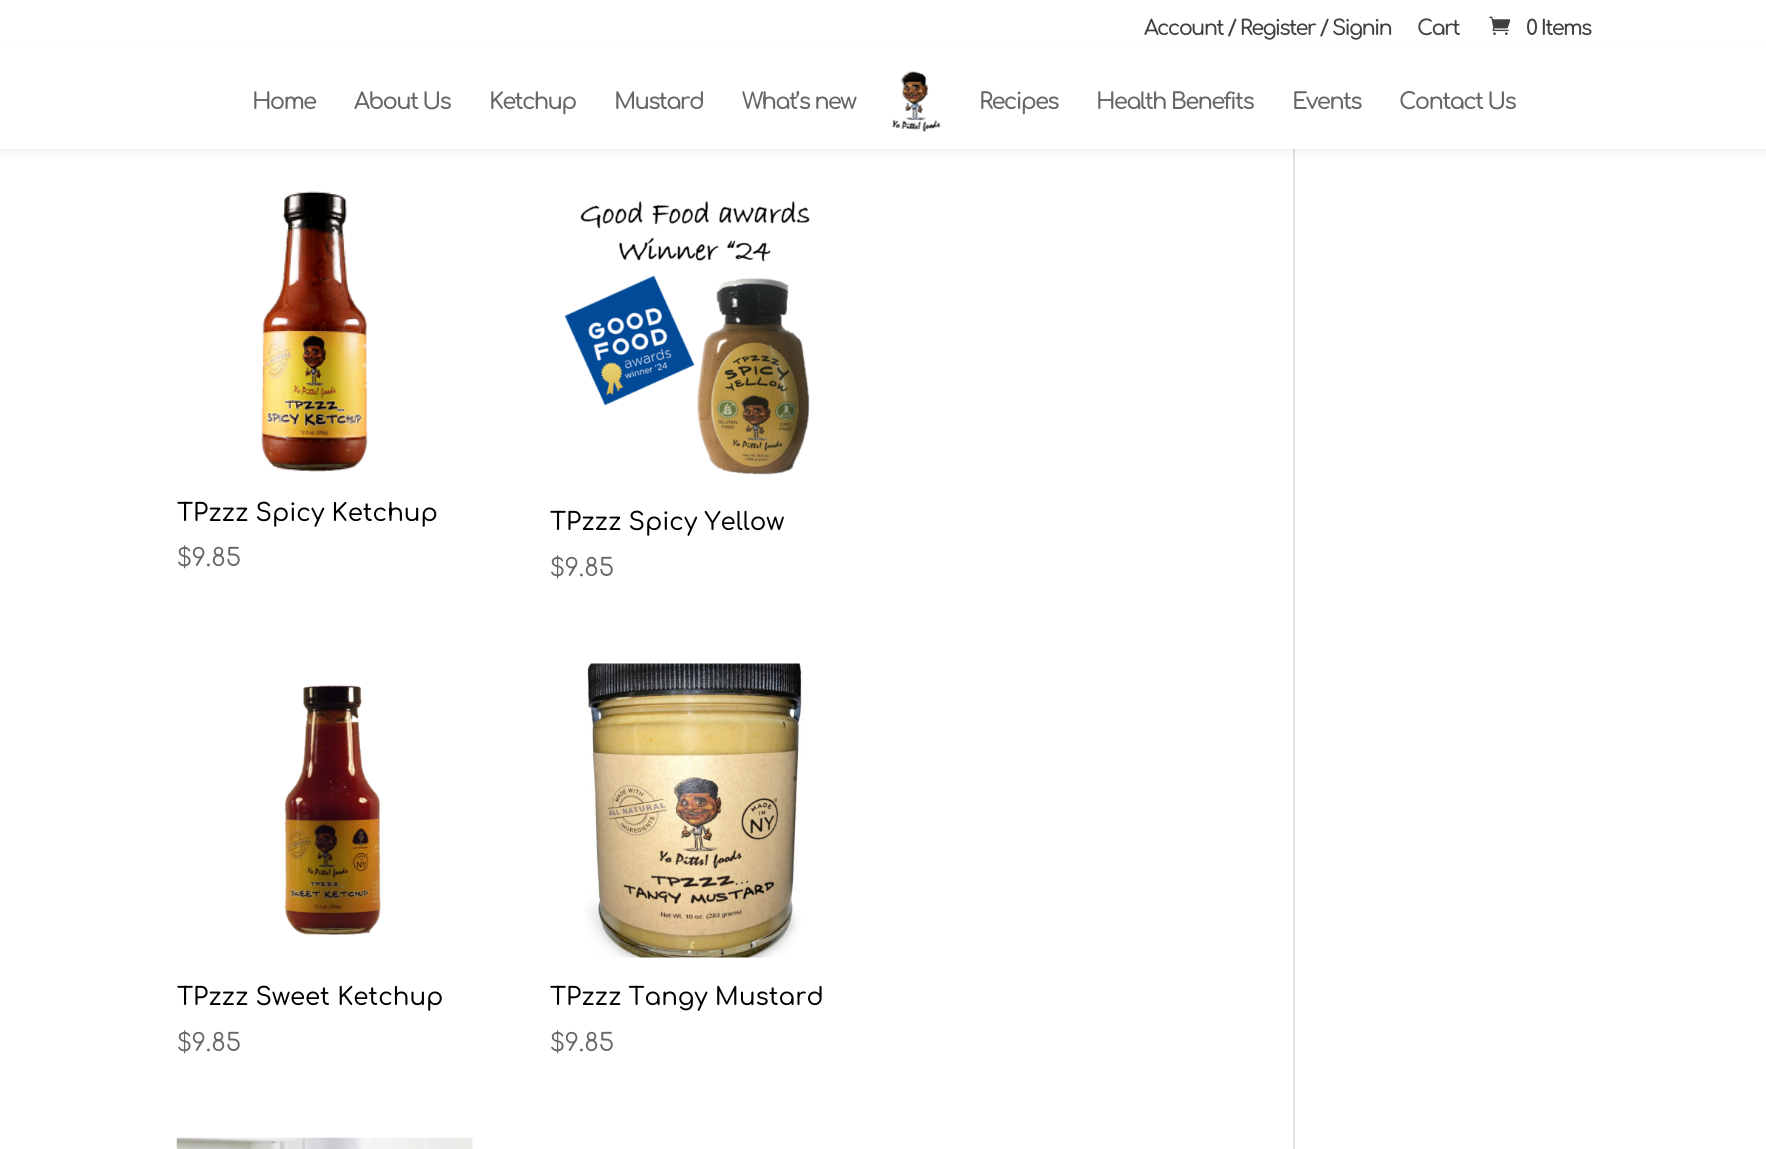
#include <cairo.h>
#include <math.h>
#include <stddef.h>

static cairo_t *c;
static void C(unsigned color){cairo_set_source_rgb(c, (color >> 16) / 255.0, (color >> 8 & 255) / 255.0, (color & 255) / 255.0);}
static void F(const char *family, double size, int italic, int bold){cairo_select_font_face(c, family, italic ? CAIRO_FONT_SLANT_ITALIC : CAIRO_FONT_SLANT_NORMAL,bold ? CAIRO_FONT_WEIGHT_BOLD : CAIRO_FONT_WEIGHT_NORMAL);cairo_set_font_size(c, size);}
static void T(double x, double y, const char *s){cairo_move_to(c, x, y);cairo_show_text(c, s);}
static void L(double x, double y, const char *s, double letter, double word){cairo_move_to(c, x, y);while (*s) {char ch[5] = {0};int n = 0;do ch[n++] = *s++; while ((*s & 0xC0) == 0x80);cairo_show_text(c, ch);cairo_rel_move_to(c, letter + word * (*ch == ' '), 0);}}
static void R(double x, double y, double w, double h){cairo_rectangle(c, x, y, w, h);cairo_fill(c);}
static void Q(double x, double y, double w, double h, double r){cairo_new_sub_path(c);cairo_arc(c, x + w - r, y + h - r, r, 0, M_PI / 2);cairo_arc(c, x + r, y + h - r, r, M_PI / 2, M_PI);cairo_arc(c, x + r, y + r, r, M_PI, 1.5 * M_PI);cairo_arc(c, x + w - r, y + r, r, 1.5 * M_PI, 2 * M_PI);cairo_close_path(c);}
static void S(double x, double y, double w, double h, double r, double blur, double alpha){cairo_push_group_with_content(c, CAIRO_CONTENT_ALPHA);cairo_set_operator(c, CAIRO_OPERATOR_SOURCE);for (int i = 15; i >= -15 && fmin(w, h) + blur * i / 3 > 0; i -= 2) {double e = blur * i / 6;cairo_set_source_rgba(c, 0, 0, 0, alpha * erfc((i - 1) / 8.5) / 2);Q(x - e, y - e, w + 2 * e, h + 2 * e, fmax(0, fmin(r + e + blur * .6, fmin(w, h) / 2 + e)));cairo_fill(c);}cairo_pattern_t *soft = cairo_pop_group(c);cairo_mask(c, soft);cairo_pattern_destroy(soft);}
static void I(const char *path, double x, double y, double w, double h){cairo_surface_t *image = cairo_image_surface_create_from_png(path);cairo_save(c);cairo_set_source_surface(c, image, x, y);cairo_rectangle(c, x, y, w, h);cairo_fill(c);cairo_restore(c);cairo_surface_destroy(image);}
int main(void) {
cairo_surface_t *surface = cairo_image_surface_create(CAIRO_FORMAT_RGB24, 1766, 1149);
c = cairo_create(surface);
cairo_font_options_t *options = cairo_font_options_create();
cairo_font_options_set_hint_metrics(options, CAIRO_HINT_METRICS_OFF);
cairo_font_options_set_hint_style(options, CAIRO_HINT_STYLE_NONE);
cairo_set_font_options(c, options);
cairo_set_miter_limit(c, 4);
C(0xffffff);
cairo_paint(c);
C(0xe2e2e2);
R(1293,149,2,1000);
C(0x000000);
S(0,54,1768,95,0,6,.1);
F("Comfortaa SemiBold",21,0,0);
C(0x404040);
L(1144,35,"Account / Register / Signin",-1.75,0);
L(1417,35,"Cart",-1.75,0);
I("1.png",1489,16,22,19);
L(1526,35,"0 Items",-1.75,0);
C(0xffffff);
R(0,46,1766,103);
F("Comfortaa SemiBold",22.75,0,0);
C(0x666666);
L(252,109,"Home",-1.75,0);
L(354,109,"About Us",-1.75,0);
L(489,109,"Ketchup",-1.75,0);
L(614,109,"Mustard",-1.75,0);
L(742,109,"What’s new",-1.75,0);
I("2.png",892,71,49,61);
L(979,109,"Recipes",-1.75,0);
L(1096,109,"Health Benefits",-1.75,0);
L(1292,109,"Events",-1.75,0);
L(1399,109,"Contact Us",-1.75,0);
I("3.png",261,191,107,281);
F("Comfortaa Medium",24.5,0,0);
C(0x000000);
T(177,521,"TPzzz Spicy Ketchup");
F("Comfortaa",24.5,0,0);
C(0x666666);
T(177,566,"$9.85");
I("4.png",564,201,246,274);
F("Comfortaa Medium",24.5,0,0);
C(0x000000);
T(550,530,"TPzzz Spicy Yellow");
F("Comfortaa",24.5,0,0);
C(0x666666);
T(550,576,"$9.85");
I("5.png",284,685,97,250);
F("Comfortaa Medium",24.5,0,0);
C(0x000000);
T(177,1005,"TPzzz Sweet Ketchup");
F("Comfortaa",24.5,0,0);
C(0x666666);
T(177,1051,"$9.85");
I("6.png",585,663,219,295);
F("Comfortaa Medium",24.5,0,0);
C(0x000000);
T(550,1005,"TPzzz Tangy Mustard");
F("Comfortaa",24.5,0,0);
C(0x666666);
T(550,1051,"$9.85");
I("7.png",176,1137,297,12);
cairo_surface_write_to_png(surface, "o.png");
cairo_font_options_destroy(options);
cairo_destroy(c);
cairo_surface_destroy(surface);
return 0;
}
